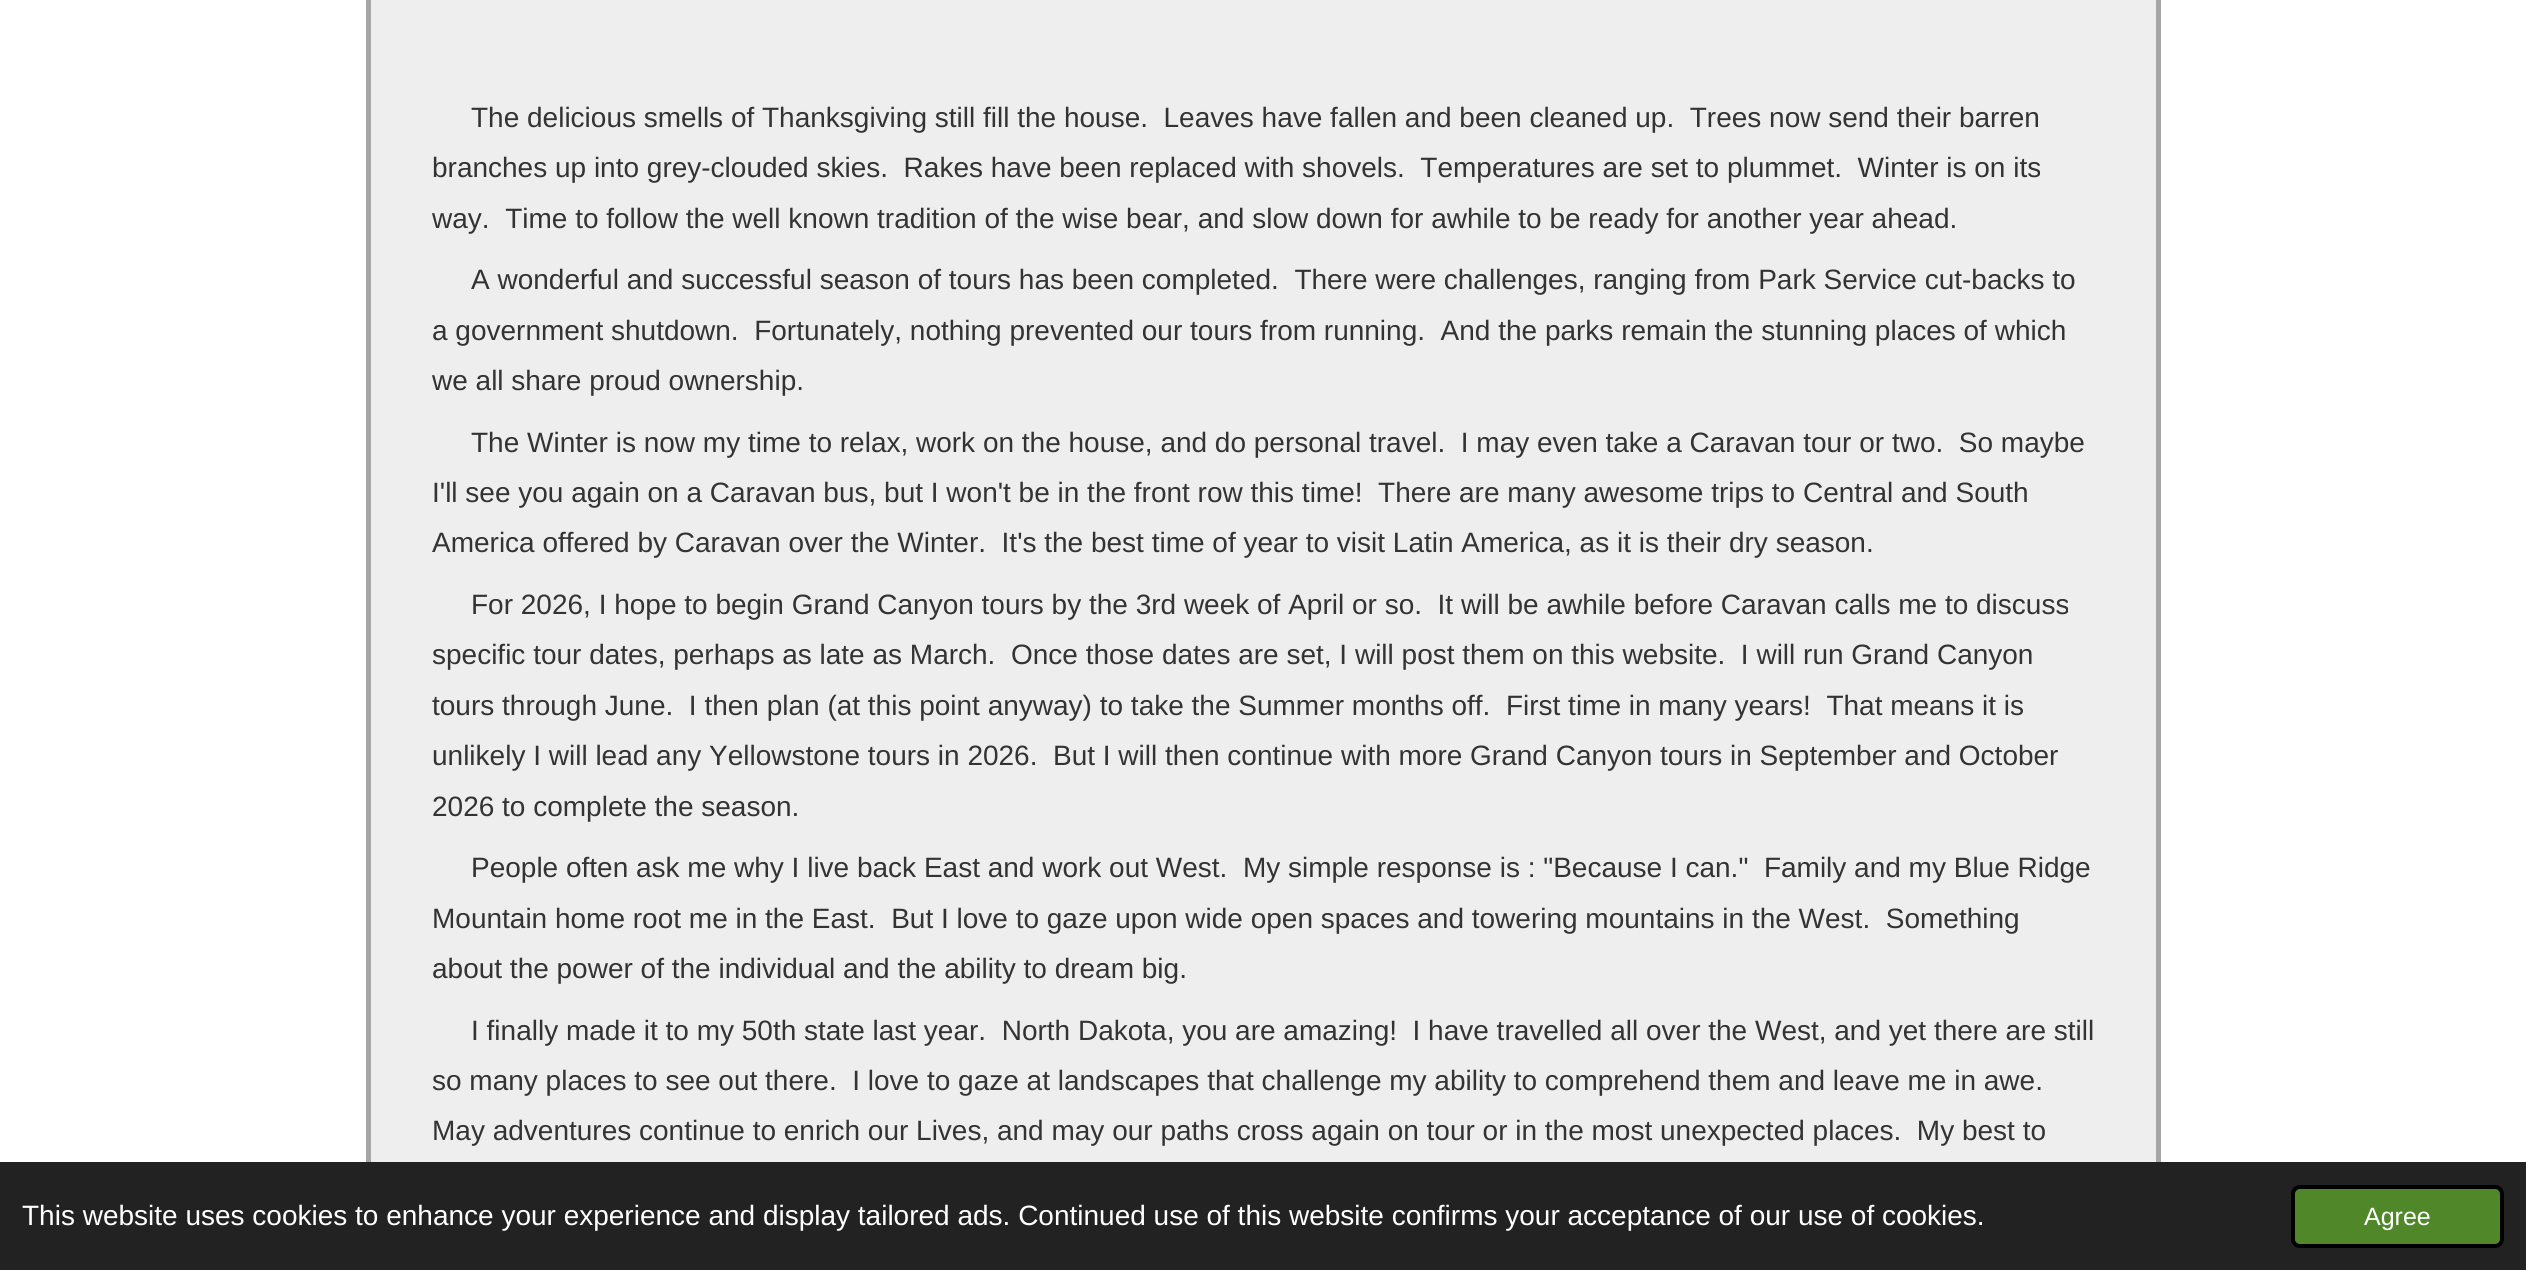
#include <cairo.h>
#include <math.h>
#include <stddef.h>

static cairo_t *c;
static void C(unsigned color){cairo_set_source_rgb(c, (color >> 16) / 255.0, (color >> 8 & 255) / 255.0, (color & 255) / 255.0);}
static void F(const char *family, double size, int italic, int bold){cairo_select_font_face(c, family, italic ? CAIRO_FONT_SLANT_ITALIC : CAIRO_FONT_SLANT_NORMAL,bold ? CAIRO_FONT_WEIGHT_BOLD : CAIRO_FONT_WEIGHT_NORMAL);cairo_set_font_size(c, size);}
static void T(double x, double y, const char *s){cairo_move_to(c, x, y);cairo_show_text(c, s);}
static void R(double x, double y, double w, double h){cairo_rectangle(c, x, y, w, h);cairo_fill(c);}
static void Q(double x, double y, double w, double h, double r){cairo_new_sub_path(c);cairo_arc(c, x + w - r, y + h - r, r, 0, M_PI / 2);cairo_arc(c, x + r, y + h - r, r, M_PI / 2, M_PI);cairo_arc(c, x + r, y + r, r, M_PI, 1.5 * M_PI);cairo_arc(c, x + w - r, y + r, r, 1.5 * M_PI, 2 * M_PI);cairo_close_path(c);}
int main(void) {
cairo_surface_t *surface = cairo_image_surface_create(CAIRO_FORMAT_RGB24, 2526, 1270);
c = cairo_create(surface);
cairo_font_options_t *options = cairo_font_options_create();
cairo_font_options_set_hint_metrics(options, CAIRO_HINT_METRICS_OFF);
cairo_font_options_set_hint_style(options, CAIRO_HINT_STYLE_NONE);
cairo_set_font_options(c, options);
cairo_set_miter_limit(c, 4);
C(0xffffff);
cairo_paint(c);
C(0xeeeeee);
R(371,0,1785,1162);
cairo_rectangle(c,368.5,-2.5,1790,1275);
C(0xa6a6a6);
cairo_set_line_width(c,5);
cairo_stroke(c);
F("Liberation Sans",28,0,0);
C(0x333333);
T(471,127,"The delicious smells of Thanksgiving still fill the house.  Leaves have fallen and been cleaned up.  Trees now send their barren");
T(432,177,"branches up into grey-clouded skies.  Rakes have been replaced with shovels.  Temperatures are set to plummet.  Winter is on its");
T(432,228,"way.  Time to follow the well known tradition of the wise bear, and slow down for awhile to be ready for another year ahead.");
T(471,289,"A wonderful and successful season of tours has been completed.  There were challenges, ranging from Park Service cut-backs to");
T(432,340,"a government shutdown.  Fortunately, nothing prevented our tours from running.  And the parks remain the stunning places of which");
T(432,390,"we all share proud ownership.");
T(471,452,"The Winter is now my time to relax, work on the house, and do personal travel.  I may even take a Caravan tour or two.  So maybe");
T(432,502,"I'll see you again on a Caravan bus, but I won't be in the front row this time!  There are many awesome trips to Central and South");
T(432,552,"America offered by Caravan over the Winter.  It's the best time of year to visit Latin America, as it is their dry season.");
T(471,614,"For 2026, I hope to begin Grand Canyon tours by the 3rd week of April or so.  It will be awhile before Caravan calls me to discuss");
T(432,664,"specific tour dates, perhaps as late as March.  Once those dates are set, I will post them on this website.  I will run Grand Canyon");
T(432,715,"tours through June.  I then plan (at this point anyway) to take the Summer months off.  First time in many years!  That means it is");
T(432,765,"unlikely I will lead any Yellowstone tours in 2026.  But I will then continue with more Grand Canyon tours in September and October");
T(432,816,"2026 to complete the season.");
T(471,877,"People often ask me why I live back East and work out West.  My simple response is : \"Because I can.\"  Family and my Blue Ridge");
T(432,928,"Mountain home root me in the East.  But I love to gaze upon wide open spaces and towering mountains in the West.  Something");
T(432,978,"about the power of the individual and the ability to dream big.");
T(471,1040,"I finally made it to my 50th state last year.  North Dakota, you are amazing!  I have travelled all over the West, and yet there are still");
T(432,1090,"so many places to see out there.  I love to gaze at landscapes that challenge my ability to comprehend them and leave me in awe.");
T(432,1140,"May adventures continue to enrich our Lives, and may our paths cross again on tour or in the most unexpected places.  My best to");
C(0x222222);
R(0,1162,2526,108);
C(0xffffff);
T(22,1225,"This website uses cookies to enhance your experience and display tailored ads. Continued use of this website confirms your acceptance of our use of cookies.");
C(0x508729);
Q(2293,1187,209,59,7);
cairo_fill_preserve(c);
C(0x000000);
cairo_set_line_width(c,4);
cairo_stroke(c);
F("Liberation Sans",25,0,0);
C(0xffffff);
T(2364,1225,"Agree");
cairo_surface_write_to_png(surface, "o.png");
cairo_font_options_destroy(options);
cairo_destroy(c);
cairo_surface_destroy(surface);
return 0;
}
